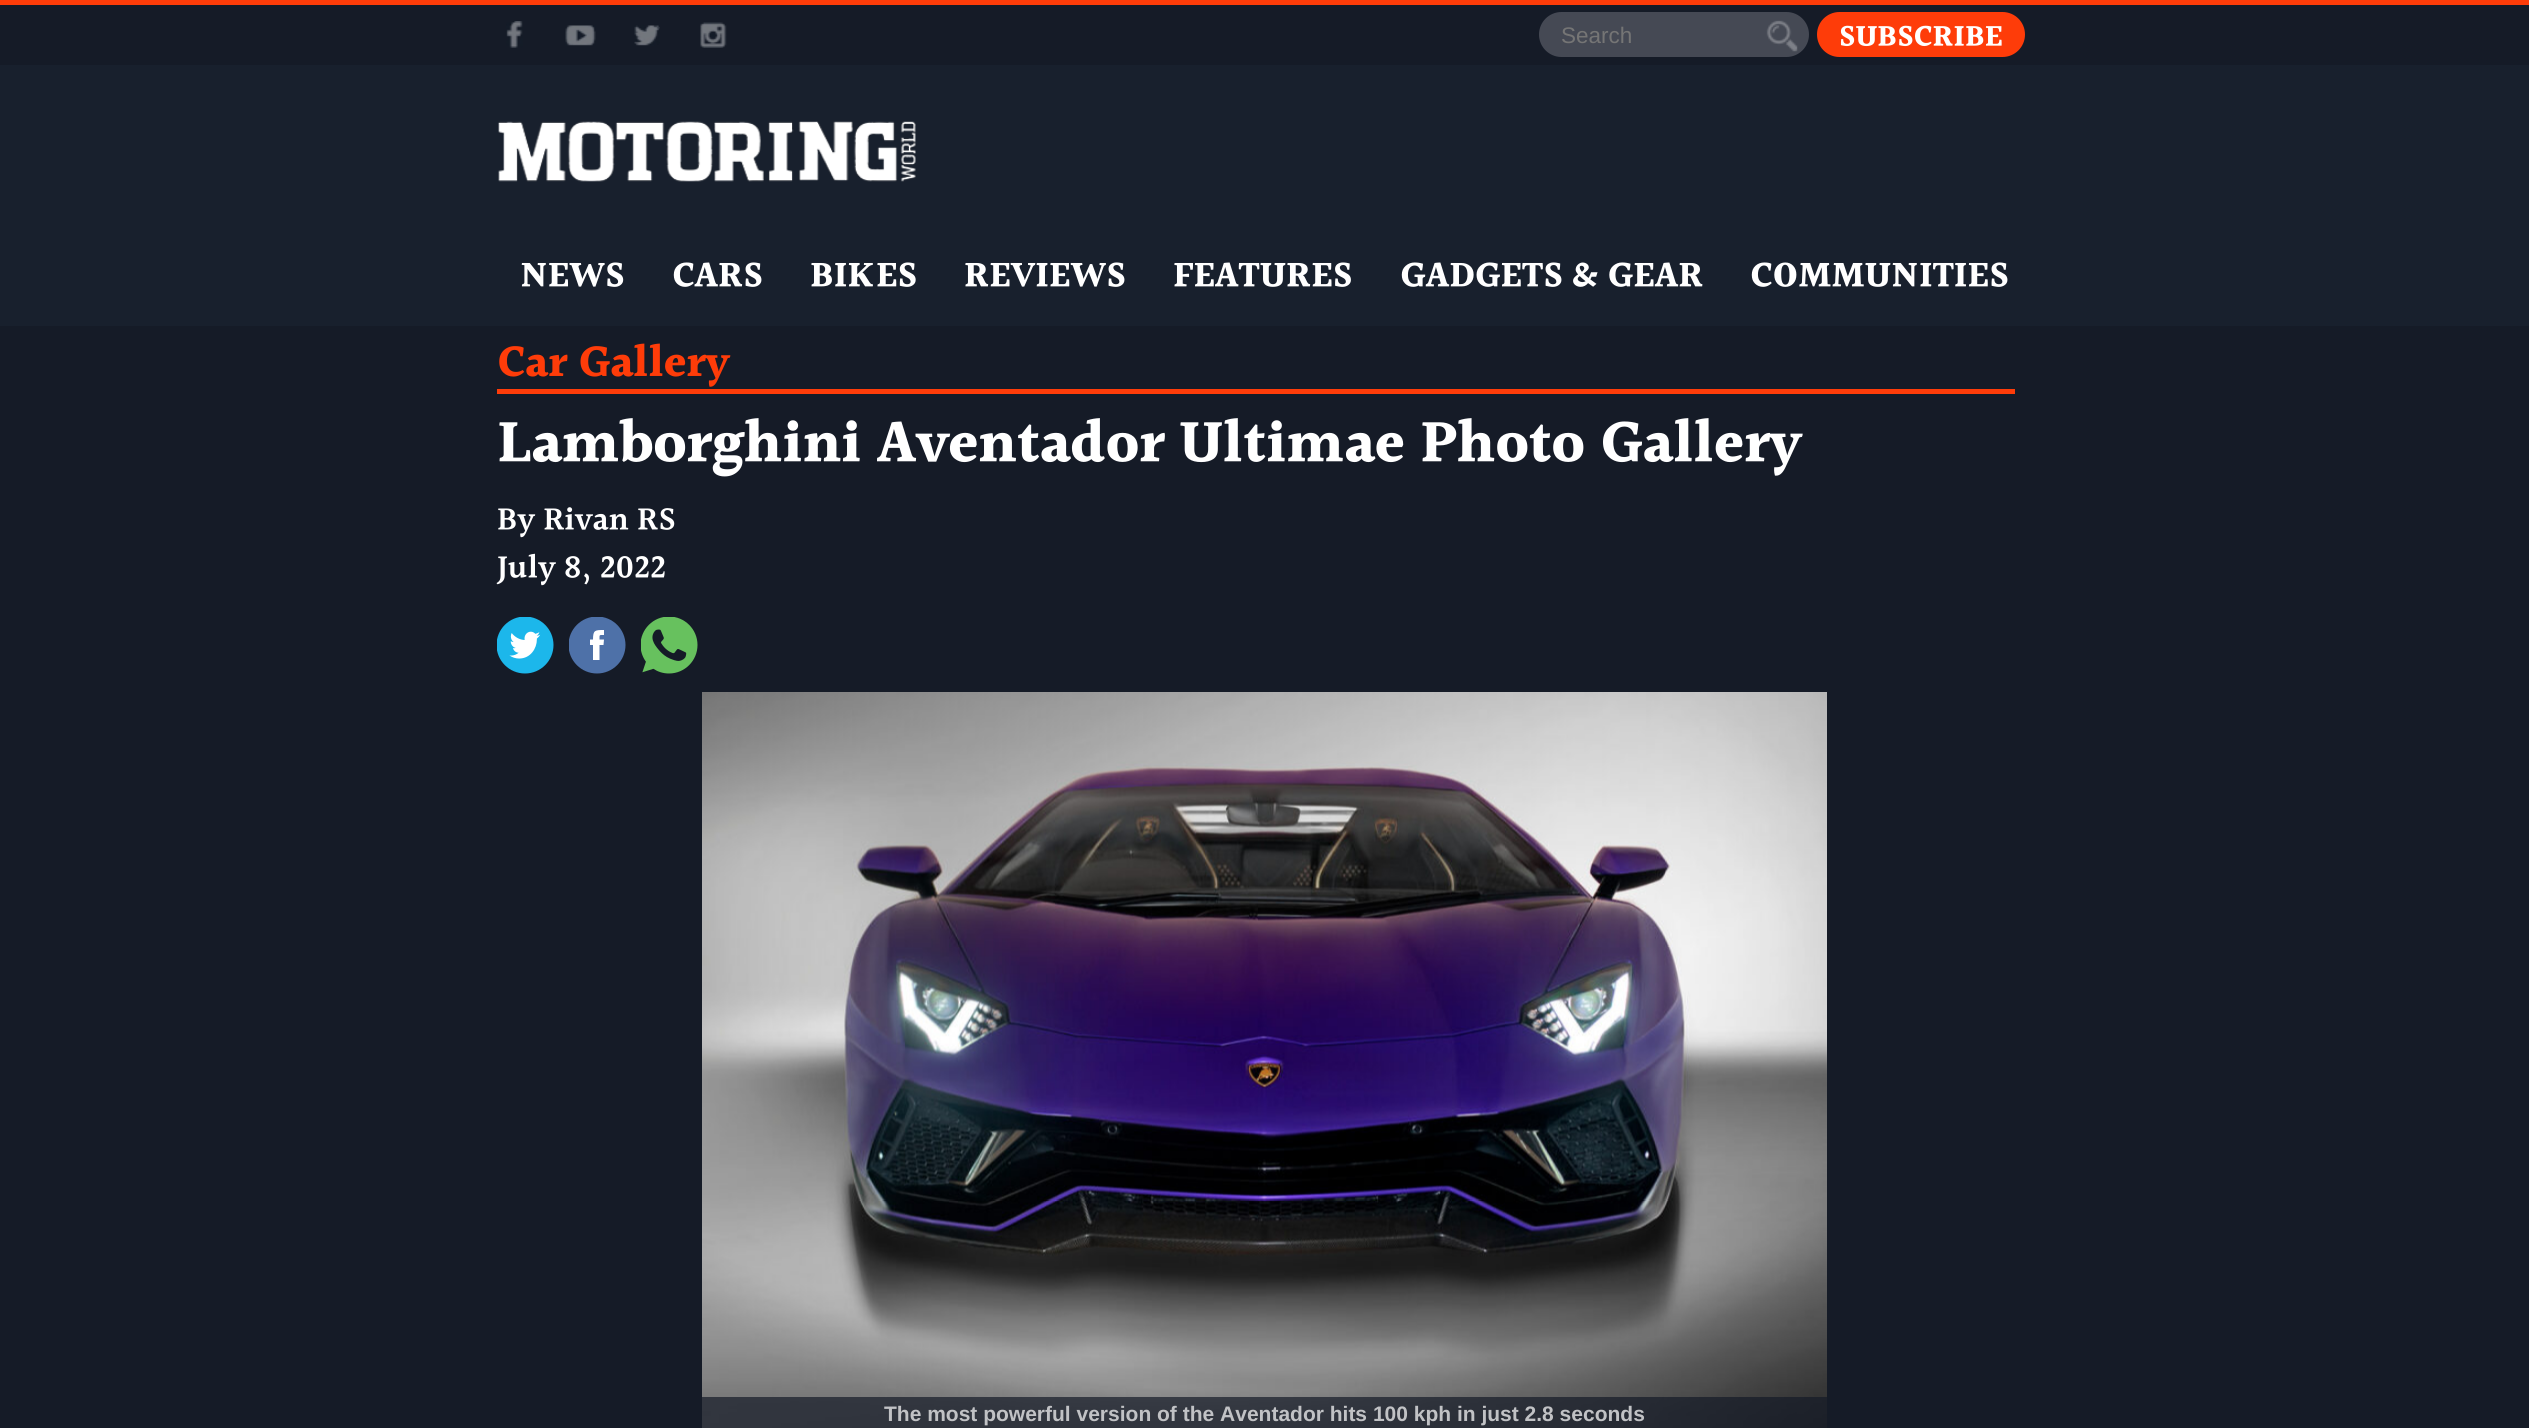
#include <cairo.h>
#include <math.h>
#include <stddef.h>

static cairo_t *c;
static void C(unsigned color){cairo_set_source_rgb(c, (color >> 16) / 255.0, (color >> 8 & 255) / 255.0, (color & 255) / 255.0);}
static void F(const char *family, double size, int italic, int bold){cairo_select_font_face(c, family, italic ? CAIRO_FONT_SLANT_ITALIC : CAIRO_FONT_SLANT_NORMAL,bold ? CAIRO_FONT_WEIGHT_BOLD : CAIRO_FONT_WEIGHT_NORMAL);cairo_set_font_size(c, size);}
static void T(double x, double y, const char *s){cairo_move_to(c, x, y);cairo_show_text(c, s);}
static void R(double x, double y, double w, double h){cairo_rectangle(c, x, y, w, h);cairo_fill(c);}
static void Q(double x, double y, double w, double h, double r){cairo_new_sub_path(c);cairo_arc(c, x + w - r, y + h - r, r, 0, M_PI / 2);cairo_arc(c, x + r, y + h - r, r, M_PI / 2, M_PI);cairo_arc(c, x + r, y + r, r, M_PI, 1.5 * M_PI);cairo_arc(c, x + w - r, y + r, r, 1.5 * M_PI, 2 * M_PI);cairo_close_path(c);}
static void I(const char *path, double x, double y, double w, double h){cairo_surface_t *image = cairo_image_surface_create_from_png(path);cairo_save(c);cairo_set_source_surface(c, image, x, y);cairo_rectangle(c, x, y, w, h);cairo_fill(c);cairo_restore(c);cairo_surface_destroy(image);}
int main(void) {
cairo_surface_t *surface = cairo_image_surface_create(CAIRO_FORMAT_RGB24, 2529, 1428);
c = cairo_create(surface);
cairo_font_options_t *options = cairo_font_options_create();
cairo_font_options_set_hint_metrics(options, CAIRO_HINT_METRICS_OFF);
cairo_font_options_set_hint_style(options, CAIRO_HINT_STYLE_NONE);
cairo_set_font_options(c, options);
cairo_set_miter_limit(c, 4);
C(0x151b27);
cairo_paint(c);
C(0xfe3c09);
R(0,0,2529,5);
I("1.png",506,21,17,27);
I("2.png",565,25,31,21);
I("3.png",634,25,26,21);
I("4.png",700,22,27,26);
C(0x454954);
Q(1539,12,270,45,22.5);
cairo_fill(c);
F("Liberation Sans",22.5,0,0);
C(0x757575);
T(1561,43,"Search");
I("5.png",1766,20,32,32);
C(0xfe3c09);
Q(1817,12,208,45,22.5);
cairo_fill(c);
F("Halant",30,0,1);
C(0xffffff);
T(1839,47,"SUBSCRIBE");
C(0x18202d);
R(0,65,2529,261);
I("6.png",498,121,418,61);
F("Halant",36,0,1);
C(0xffffff);
T(520,288,"NEWS");
T(672,288,"CARS");
T(810,288,"BIKES");
T(964,288,"REVIEWS");
T(1173,288,"FEATURES");
T(1400,288,"GADGETS & GEAR");
T(1750,288,"COMMUNITIES");
F("Halant",45,0,1);
C(0xfe3c09);
T(497,378,"Car Gallery");
R(497,389,1518,5);
F("Halant",60,0,1);
C(0xffffff);
T(497,464,"Lamborghini Aventador Ultimae Photo Gallery");
F("Halant SemiBold",33,0,0);
T(497,531,"By Rivan RS");
T(497,579,"July 8, 2022");
I("7.png",497,617,57,57);
cairo_save(c);
cairo_rectangle(c,569,617,57,57);
cairo_clip(c);
C(0x4e71a8);
cairo_arc(c,597,645,28.5,0,2 * M_PI);
cairo_fill(c);
cairo_restore(c);
cairo_new_path(c);
cairo_move_to(c,604,639.5);
cairo_line_to(c,599.5,639.5);
cairo_curve_to(c,599.5,634.5,599,635,604,635);
cairo_line_to(c,604,630);
cairo_curve_to(c,595,630,593,630,593,639.5);
cairo_line_to(c,590,639.5);
cairo_line_to(c,590,645);
cairo_line_to(c,593,645);
cairo_line_to(c,593,660);
cairo_line_to(c,599.5,660);
cairo_line_to(c,599.5,645);
cairo_line_to(c,603.5,645);
cairo_close_path(c);
cairo_fill(c);
I("8.png",641,617,57,57);
I("9.png",702,692,1125,736);
cairo_set_source_rgba(c,0.082,0.106,0.153,0.7);
R(702,1397,1125,31);
F("Liberation Sans",21,0,1);
C(0xc1c2c5);
T(884,1421,"The most powerful version of the Aventador hits 100 kph in just 2.8 seconds");
cairo_surface_write_to_png(surface, "o.png");
cairo_font_options_destroy(options);
cairo_destroy(c);
cairo_surface_destroy(surface);
return 0;
}
